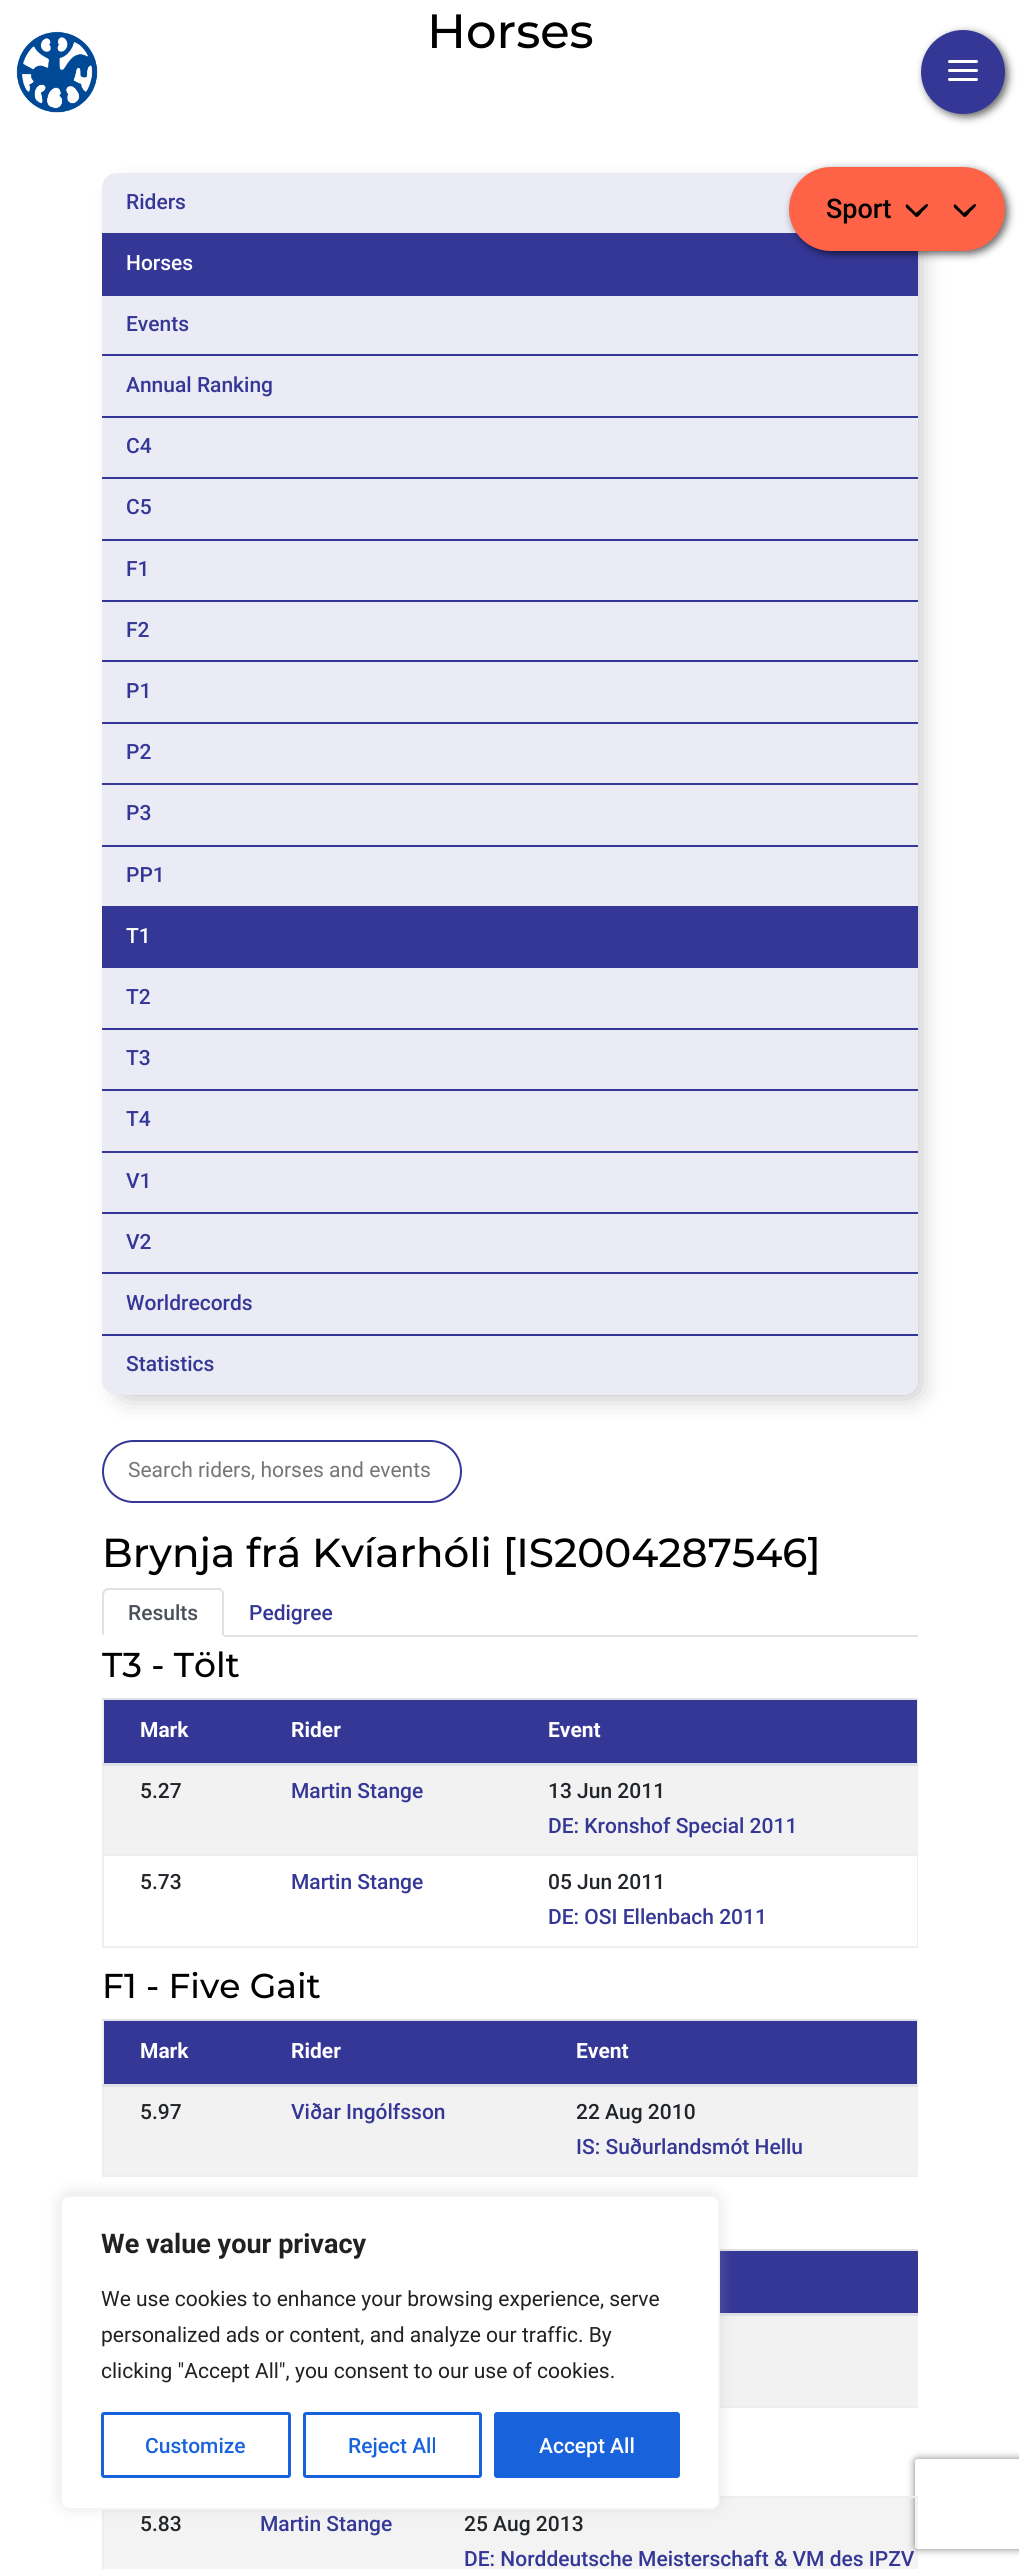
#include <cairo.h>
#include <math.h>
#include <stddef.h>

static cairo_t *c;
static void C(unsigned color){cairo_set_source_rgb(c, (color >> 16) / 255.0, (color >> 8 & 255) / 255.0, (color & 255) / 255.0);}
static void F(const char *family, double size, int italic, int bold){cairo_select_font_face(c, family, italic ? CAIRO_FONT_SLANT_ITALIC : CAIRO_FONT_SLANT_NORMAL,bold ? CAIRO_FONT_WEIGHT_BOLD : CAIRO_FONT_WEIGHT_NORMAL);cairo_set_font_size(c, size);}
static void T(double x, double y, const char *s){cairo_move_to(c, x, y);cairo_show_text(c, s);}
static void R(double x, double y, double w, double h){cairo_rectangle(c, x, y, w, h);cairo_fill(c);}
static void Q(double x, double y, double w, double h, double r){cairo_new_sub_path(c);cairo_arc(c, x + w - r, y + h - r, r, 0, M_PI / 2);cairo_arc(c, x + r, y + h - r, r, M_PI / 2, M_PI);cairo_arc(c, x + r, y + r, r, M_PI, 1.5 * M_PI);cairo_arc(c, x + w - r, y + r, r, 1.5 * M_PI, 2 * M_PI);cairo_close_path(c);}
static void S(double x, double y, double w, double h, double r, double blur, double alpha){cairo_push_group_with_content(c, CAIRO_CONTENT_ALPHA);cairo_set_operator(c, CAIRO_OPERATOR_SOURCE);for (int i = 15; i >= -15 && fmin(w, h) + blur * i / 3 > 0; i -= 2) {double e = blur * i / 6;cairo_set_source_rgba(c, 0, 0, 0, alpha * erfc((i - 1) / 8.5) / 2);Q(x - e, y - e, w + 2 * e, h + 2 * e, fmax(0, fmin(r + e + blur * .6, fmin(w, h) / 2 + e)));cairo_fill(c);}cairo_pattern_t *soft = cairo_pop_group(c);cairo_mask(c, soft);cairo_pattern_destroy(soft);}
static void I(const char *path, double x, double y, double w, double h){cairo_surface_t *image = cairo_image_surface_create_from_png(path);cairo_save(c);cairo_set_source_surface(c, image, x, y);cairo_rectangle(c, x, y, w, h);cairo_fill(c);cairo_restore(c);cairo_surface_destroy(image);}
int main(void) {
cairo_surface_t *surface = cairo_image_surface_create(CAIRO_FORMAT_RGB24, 1019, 2569);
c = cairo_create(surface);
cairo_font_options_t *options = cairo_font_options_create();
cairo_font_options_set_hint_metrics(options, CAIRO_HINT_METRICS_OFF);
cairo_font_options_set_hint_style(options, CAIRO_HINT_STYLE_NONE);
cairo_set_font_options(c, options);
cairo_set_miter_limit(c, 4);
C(0xffffff);
cairo_paint(c);
F("Montserrat Medium",48,0,0);
C(0x000000);
T(427,48,"Horses");
cairo_save(c);
cairo_set_fill_rule(c,CAIRO_FILL_RULE_EVEN_ODD);
cairo_new_path(c);
cairo_move_to(c,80,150);
cairo_line_to(c,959,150);
cairo_line_to(c,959,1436);
cairo_line_to(c,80,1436);
cairo_close_path(c);
cairo_move_to(c,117,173);
cairo_line_to(c,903,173);
cairo_curve_to(c,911.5,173,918,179.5,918,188);
cairo_line_to(c,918,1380);
cairo_curve_to(c,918,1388.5,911.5,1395,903,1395);
cairo_line_to(c,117,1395);
cairo_curve_to(c,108.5,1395,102,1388.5,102,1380);
cairo_line_to(c,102,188);
cairo_curve_to(c,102,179.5,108.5,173,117,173);
cairo_close_path(c);
cairo_clip(c);
C(0x000000);
S(122,192,795,1202,5,13.5,.3);
cairo_restore(c);
cairo_set_source_rgba(c,0.208,0.216,0.592,0.1);
Q(102,173,816,1222,15);
cairo_fill(c);
F("Roboto Medium",21,0,0);
C(0x353797);
T(126,209,"Riders");
R(102,233,816,63);
C(0xffffff);
T(126,270,"Horses");
C(0x353797);
T(126,331,"Events");
R(102,354,816,2);
T(126,392,"Annual Ranking");
R(102,416,816,2);
T(126,453,"C4");
R(102,477,816,2);
T(126,514,"C5");
R(102,539,816,2);
T(126,576,"F1");
R(102,600,816,2);
T(126,637,"F2");
R(102,660,816,2);
T(126,698,"P1");
R(102,722,816,2);
T(126,759,"P2");
R(102,783,816,2);
T(126,820,"P3");
R(102,845,816,2);
T(126,882,"PP1");
R(102,906,816,62);
C(0xffffff);
T(126,943,"T1");
C(0x353797);
T(126,1004,"T2");
R(102,1028,816,2);
T(126,1065,"T3");
R(102,1089,816,2);
T(126,1126,"T4");
R(102,1151,816,2);
T(126,1188,"V1");
R(102,1212,816,2);
T(126,1249,"V2");
R(102,1272,816,2);
T(126,1310,"Worldrecords");
R(102,1334,816,2);
T(126,1371,"Statistics");
Q(103,1441,358,61,30.5);
cairo_stroke(c);
F("Roboto",21,0,0);
C(0x757575);
T(128,1477,"Search riders, horses and events");
F("Montserrat Medium",40.5,0,0);
C(0x000000);
T(102,1567,"Brynja frá Kvíarhóli [IS2004287546]");
C(0xdee2e6);
R(224,1635,694,2);
cairo_new_path(c);
cairo_move_to(c,108,1590);
cairo_curve_to(c,107,1590,106,1591,105,1592);
cairo_line_to(c,104,1590);
cairo_line_to(c,106,1588);
cairo_line_to(c,220,1588);
cairo_line_to(c,222,1590);
cairo_line_to(c,221,1591);
cairo_line_to(c,218,1590);
cairo_close_path(c);
cairo_fill(c);
cairo_new_path(c);
cairo_move_to(c,224,1636);
cairo_line_to(c,222,1635);
cairo_line_to(c,222,1594);
cairo_curve_to(c,222,1593,222,1592,221,1591);
cairo_line_to(c,222,1590);
cairo_line_to(c,224,1592);
cairo_close_path(c);
cairo_fill(c);
C(0xffffff);
cairo_new_path(c);
cairo_move_to(c,223,1636);
cairo_line_to(c,102,1636);
cairo_line_to(c,104,1634);
cairo_line_to(c,104,1635);
cairo_line_to(c,222,1635);
cairo_close_path(c);
cairo_fill(c);
C(0xdee2e6);
cairo_new_path(c);
cairo_move_to(c,102,1594);
cairo_line_to(c,102,1636);
cairo_line_to(c,104,1634);
cairo_line_to(c,104,1594);
cairo_line_to(c,105,1592);
cairo_line_to(c,104,1590);
cairo_curve_to(c,103,1591,102,1593,102,1594);
cairo_close_path(c);
cairo_fill(c);
F("Roboto Medium",21,0,0);
C(0x495057);
T(128,1620,"Results");
C(0x353797);
T(249,1620,"Pedigree");
F("Montserrat Medium",34.5,0,0);
C(0x000000);
T(102,1677,"T3 - Tölt");
C(0xeeeeee);
R(917,1698,1,249);
R(102,1946,816,2);
R(102,1698,2,249);
C(0x353797);
R(104,1700,813,63);
F("Roboto",21,0,1);
C(0xffffff);
T(140,1737,"Mark");
T(291,1737,"Rider");
C(0xdee2e6);
R(102,1698,816,2);
R(102,1763,816,3);
C(0xffffff);
T(548,1737,"Event");
C(0xf2f2f2);
R(104,1766,813,88);
F("Roboto Medium",21,0,0);
C(0x212529);
T(140,1798,"5.27");
C(0x353797);
T(291,1798,"Martin Stange");
C(0x212529);
T(548,1798,"13 Jun 2011");
C(0x353797);
T(548,1833,"DE: Kronshof Special 2011");
C(0x212529);
T(140,1889,"5.73");
C(0x353797);
T(291,1889,"Martin Stange");
C(0xeeeeee);
R(102,1854,816,2);
C(0x212529);
T(548,1889,"05 Jun 2011");
C(0x353797);
T(548,1924,"DE: OSI Ellenbach 2011");
F("Montserrat Medium",34.5,0,0);
C(0x000000);
T(102,1998,"F1 - Five Gait");
C(0xeeeeee);
R(917,2019,1,158);
R(102,2175,816,2);
R(102,2019,2,158);
C(0x353797);
R(104,2021,813,63);
F("Roboto",21,0,1);
C(0xffffff);
T(140,2058,"Mark");
T(291,2058,"Rider");
C(0xdee2e6);
R(102,2019,816,2);
R(102,2084,816,3);
C(0xffffff);
T(576,2058,"Event");
C(0xf2f2f2);
R(104,2087,813,88);
F("Roboto Medium",21,0,0);
C(0x212529);
T(140,2119,"5.97");
C(0x353797);
T(291,2119,"Viðar Ingólfsson");
C(0x212529);
T(576,2119,"22 Aug 2010");
C(0x353797);
T(576,2154,"IS: Suðurlandsmót Hellu");
C(0xeeeeee);
R(102,2510,2,59);
C(0x353797);
R(720,2251,198,62);
C(0xdee2e6);
R(720,2249,198,2);
R(720,2313,198,3);
C(0xf2f2f2);
R(720,2316,198,90);
C(0xeeeeee);
R(720,2406,198,2);
cairo_save(c);
cairo_set_fill_rule(c,CAIRO_FILL_RULE_EVEN_ODD);
cairo_new_path(c);
cairo_move_to(c,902,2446);
cairo_line_to(c,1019,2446);
cairo_line_to(c,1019,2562);
cairo_line_to(c,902,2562);
cairo_close_path(c);
cairo_move_to(c,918,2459);
cairo_line_to(c,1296,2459);
cairo_curve_to(c,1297.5,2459,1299,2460.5,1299,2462);
cairo_line_to(c,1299,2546);
cairo_curve_to(c,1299,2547.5,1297.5,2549,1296,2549);
cairo_line_to(c,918,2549);
cairo_curve_to(c,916.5,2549,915,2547.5,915,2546);
cairo_line_to(c,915,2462);
cairo_curve_to(c,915,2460.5,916.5,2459,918,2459);
cairo_close_path(c);
cairo_clip(c);
C(0x808080);
S(915,2459,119,90,3,4,1);
cairo_restore(c);
cairo_set_source_rgba(c,0,0,0,0.05);
R(104,2498,814,71);
C(0x212529);
T(140,2531,"5.83");
C(0x353797);
T(260,2531,"Martin Stange");
C(0xeeeeee);
R(720,2496,198,2);
C(0x212529);
T(464,2531,"25 Aug 2013");
C(0x353797);
T(464,2566,"DE: Norddeutsche Meisterschaft & VM des IPZV");
C(0x000000);
S(792,170,216,84,42,4,.6);
C(0xff6347);
Q(789,167,216,84,42);
cairo_fill(c);
F("Roboto Medium",27,0,0);
C(0x000000);
T(826,218,"Sport");
cairo_new_path(c);
cairo_move_to(c,925,205);
cairo_line_to(c,916,213);
cairo_line_to(c,907,204);
cairo_line_to(c,906,205);
cairo_curve_to(c,904,207,910,211,911,212);
cairo_line_to(c,916,217);
cairo_curve_to(c,918,218,922,212,922,212);
cairo_curve_to(c,926,208,930,205,927,204);
cairo_close_path(c);
cairo_move_to(c,973,205);
cairo_line_to(c,964,213);
cairo_line_to(c,955,204);
cairo_line_to(c,954,205);
cairo_curve_to(c,952,207,958,211,959,212);
cairo_line_to(c,964,217);
cairo_curve_to(c,966,218,970,212,970,212);
cairo_curve_to(c,974,208,978,205,975,204);
cairo_close_path(c);
cairo_fill(c);
I("1.png",16,31,82,82);
C(0x000000);
S(924,33,84,84,42,4,.6);
C(0x353797);
cairo_arc(c,963,72,42,0,2 * M_PI);
cairo_fill(c);
I("2.png",948,60,30,21);
C(0xacabab);
S(60,2193,660,315,9,7.5,.3);
C(0xffffff);
Q(61,2196,658,313,8);
cairo_fill_preserve(c);
C(0xf4f4f4);
cairo_stroke(c);
F("Roboto",27,0,1);
C(0x212121);
T(101,2253,"We value your privacy");
F("Roboto",21,0,0);
T(101,2306,"We use cookies to enhance your browsing experience, serve");
T(101,2342,"personalized ads or content, and analyze our traffic. By");
T(101,2378,"clicking \"Accept All\", you consent to our use of cookies.");
Q(102.5,2413.5,187,63,1.5);
C(0x1863dc);
cairo_set_line_width(c,3);
cairo_stroke(c);
F("Roboto Medium",21,0,0);
T(145,2453,"Customize");
Q(304.5,2413.5,176,63,1.5);
cairo_stroke(c);
T(348,2453,"Reject All");
Q(495.5,2413.5,183,63,1.5);
cairo_fill_preserve(c);
cairo_stroke(c);
C(0xffffff);
T(539,2453,"Accept All");
cairo_surface_write_to_png(surface, "o.png");
cairo_font_options_destroy(options);
cairo_destroy(c);
cairo_surface_destroy(surface);
return 0;
}
